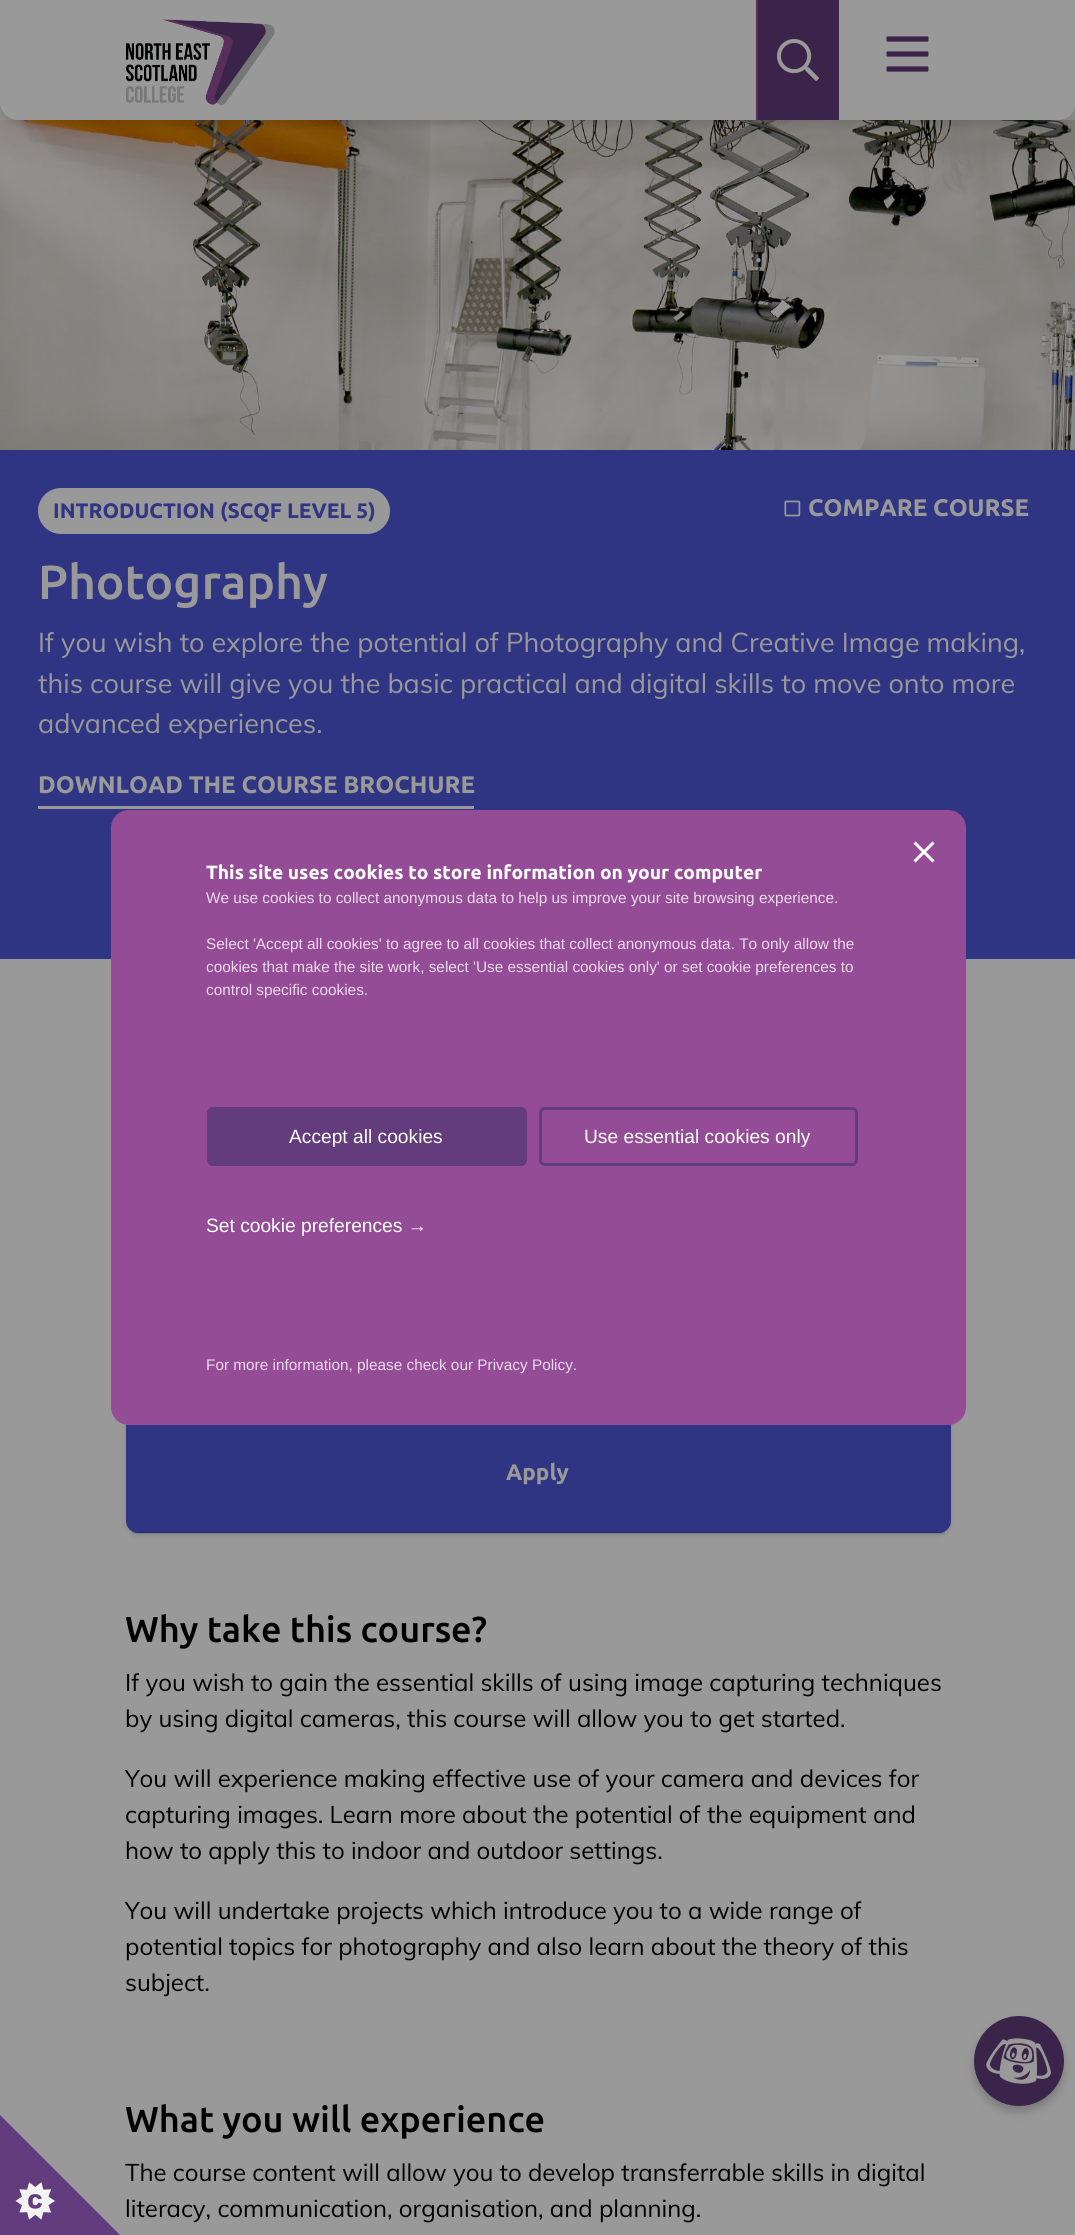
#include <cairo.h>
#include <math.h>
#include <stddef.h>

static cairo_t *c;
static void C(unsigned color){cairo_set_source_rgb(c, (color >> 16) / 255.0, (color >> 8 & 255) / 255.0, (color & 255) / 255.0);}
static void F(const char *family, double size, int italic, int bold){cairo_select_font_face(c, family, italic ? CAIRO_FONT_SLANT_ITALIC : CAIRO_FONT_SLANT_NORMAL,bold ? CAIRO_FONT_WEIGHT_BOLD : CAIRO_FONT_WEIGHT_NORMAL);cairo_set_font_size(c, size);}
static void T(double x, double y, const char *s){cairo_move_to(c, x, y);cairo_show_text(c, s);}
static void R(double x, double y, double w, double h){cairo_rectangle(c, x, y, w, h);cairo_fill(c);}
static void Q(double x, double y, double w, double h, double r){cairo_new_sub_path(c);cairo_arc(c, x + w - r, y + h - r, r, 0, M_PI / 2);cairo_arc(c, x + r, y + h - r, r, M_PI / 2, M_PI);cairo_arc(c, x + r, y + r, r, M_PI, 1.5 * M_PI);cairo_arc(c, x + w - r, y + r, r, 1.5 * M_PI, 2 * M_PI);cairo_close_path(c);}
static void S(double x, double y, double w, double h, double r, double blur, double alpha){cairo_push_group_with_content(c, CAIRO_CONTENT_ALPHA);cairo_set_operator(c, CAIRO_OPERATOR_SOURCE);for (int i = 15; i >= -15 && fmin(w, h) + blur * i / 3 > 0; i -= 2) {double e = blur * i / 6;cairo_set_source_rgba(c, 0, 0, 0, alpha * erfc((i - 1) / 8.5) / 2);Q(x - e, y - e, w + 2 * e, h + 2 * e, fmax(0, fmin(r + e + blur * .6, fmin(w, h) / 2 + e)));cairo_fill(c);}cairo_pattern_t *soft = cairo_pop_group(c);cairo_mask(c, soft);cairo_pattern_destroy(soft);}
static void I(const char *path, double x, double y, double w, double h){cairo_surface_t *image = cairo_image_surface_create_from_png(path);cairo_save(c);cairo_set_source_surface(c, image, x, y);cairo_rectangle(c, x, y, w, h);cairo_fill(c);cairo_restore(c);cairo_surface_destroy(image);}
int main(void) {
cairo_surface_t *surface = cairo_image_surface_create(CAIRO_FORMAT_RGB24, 1075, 2235);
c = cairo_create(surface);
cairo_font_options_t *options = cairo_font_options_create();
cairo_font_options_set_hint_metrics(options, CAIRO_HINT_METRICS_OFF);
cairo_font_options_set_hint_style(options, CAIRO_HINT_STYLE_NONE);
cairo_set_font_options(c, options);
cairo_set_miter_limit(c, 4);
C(0x999999);
cairo_paint(c);
C(0x8f8f8f);
R(0,102,1075,18);
I("4.png",0,120,1075,330);
C(0x000000);
S(0,5,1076,120,18,4.5,.12);
C(0x999999);
cairo_new_path(c);
cairo_move_to(c,0,0);
cairo_line_to(c,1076,0);
cairo_line_to(c,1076,102);
cairo_curve_to(c,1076,112,1068,120,1058,120);
cairo_line_to(c,18,120);
cairo_curve_to(c,8,120,0,112,0,102);
cairo_close_path(c);
cairo_fill(c);
I("1.png",126,19,149,86);
C(0x3b244a);
R(758,0,81,120);
C(0x592e5b);
R(756,0,2,120);
I("2.png",777,39,42,42);
I("3.png",886,36,43,36);
C(0x2f3582);
R(0,450,1075,509);
C(0x999999);
Q(38,488,352,46,23);
cairo_fill(c);
F("Ubuntu",21,0,1);
C(0x2f3582);
T(53,518,"INTRODUCTION (SCQF LEVEL 5)");
I("5.png",784,500,17,17);
F("Ubuntu",24,0,1);
C(0x999999);
T(808,516,"COMPARE COURSE");
F("Ubuntu Medium",48,0,0);
T(38,599,"Photography");
F("Muli",27,0,0);
T(38,652,"If you wish to explore the potential of Photography and Creative Image making,");
T(38,693,"this course will give you the basic practical and digital skills to move onto more");
T(38,733,"advanced experiences.");
R(38,806,436,3);
F("Ubuntu",24,0,1);
T(38,793,"DOWNLOAD THE COURSE BROCHURE");
C(0x000000);
S(126,893,825,642,12,3,.12);
C(0x2f3582);
cairo_new_path(c);
cairo_move_to(c,126,1412);
cairo_line_to(c,951,1412);
cairo_line_to(c,951,1521);
cairo_curve_to(c,951,1527.5,945.5,1533,939,1533);
cairo_line_to(c,138,1533);
cairo_curve_to(c,131.5,1533,126,1527.5,126,1521);
cairo_close_path(c);
cairo_fill(c);
cairo_set_source_rgba(c,0,0,0,0.12);
R(132,1532,813,2);
F("Ubuntu",22.5,0,1);
C(0x999999);
T(506,1480,"Apply");
F("Ubuntu Medium",36,0,0);
C(0x010101);
T(125,1642,"Why take this course?");
F("Muli",24,0,0);
T(125,1691,"If you wish to gain the essential skills of using image capturing techniques");
T(125,1727,"by using digital cameras, this course will allow you to get started.");
T(125,1787,"You will experience making effective use of your camera and devices for");
T(125,1823,"capturing images. Learn more about the potential of the equipment and");
T(125,1859,"how to apply this to indoor and outdoor settings.");
T(125,1919,"You will undertake projects which introduce you to a wide range of");
T(125,1955,"potential topics for photography and also learn about the theory of this");
T(125,1991,"subject.");
F("Ubuntu Medium",36,0,0);
T(125,2132,"What you will experience");
F("Muli",24,0,0);
T(125,2181,"The course content will allow you to develop transferrable skills in digital");
T(125,2217,"literacy, communication, organisation, and planning.");
C(0x954c97);
Q(111,810,855,615,18);
cairo_fill(c);
I("6.png",913,841,22,22);
F("Ubuntu",19.2,0,1);
C(0xffffff);
T(206,879,"This site uses cookies to store information on your computer");
F("Liberation Sans",15.35,0,0);
C(0xeadbea);
T(206,903,"We use cookies to collect anonymous data to help us improve your site browsing experience.");
T(206,949,"Select 'Accept all cookies' to agree to all cookies that collect anonymous data. To only allow the");
T(206,972,"cookies that make the site work, select 'Use essential cookies only' or set cookie preferences to");
T(206,995,"control specific cookies.");
C(0x623c7c);
Q(208.5,1108.5,317,56,4.5);
cairo_fill_preserve(c);
cairo_set_line_width(c,3);
cairo_stroke(c);
F("Liberation Sans",19.2,0,0);
C(0xffffff);
T(289,1143,"Accept all cookies");
Q(540.5,1108.5,316,56,4.5);
C(0x623c7c);
cairo_stroke(c);
C(0xffffff);
T(584,1143,"Use essential cookies only");
T(206,1232,"Set cookie preferences →");
F("Liberation Sans",15.35,0,0);
C(0xeadbea);
T(206,1370,"For more information, please check our Privacy Policy.");
I("7.png",0,2115,120,120);
C(0x000000);
S(974,2022,90,90,45,4.5,.2);
C(0x3b244a);
cairo_arc(c,1019,2061,44,0,2 * M_PI);
cairo_fill_preserve(c);
cairo_set_line_width(c,2);
cairo_stroke(c);
I("8.png",986,2038,65,46);
cairo_surface_write_to_png(surface, "o.png");
cairo_font_options_destroy(options);
cairo_destroy(c);
cairo_surface_destroy(surface);
return 0;
}
